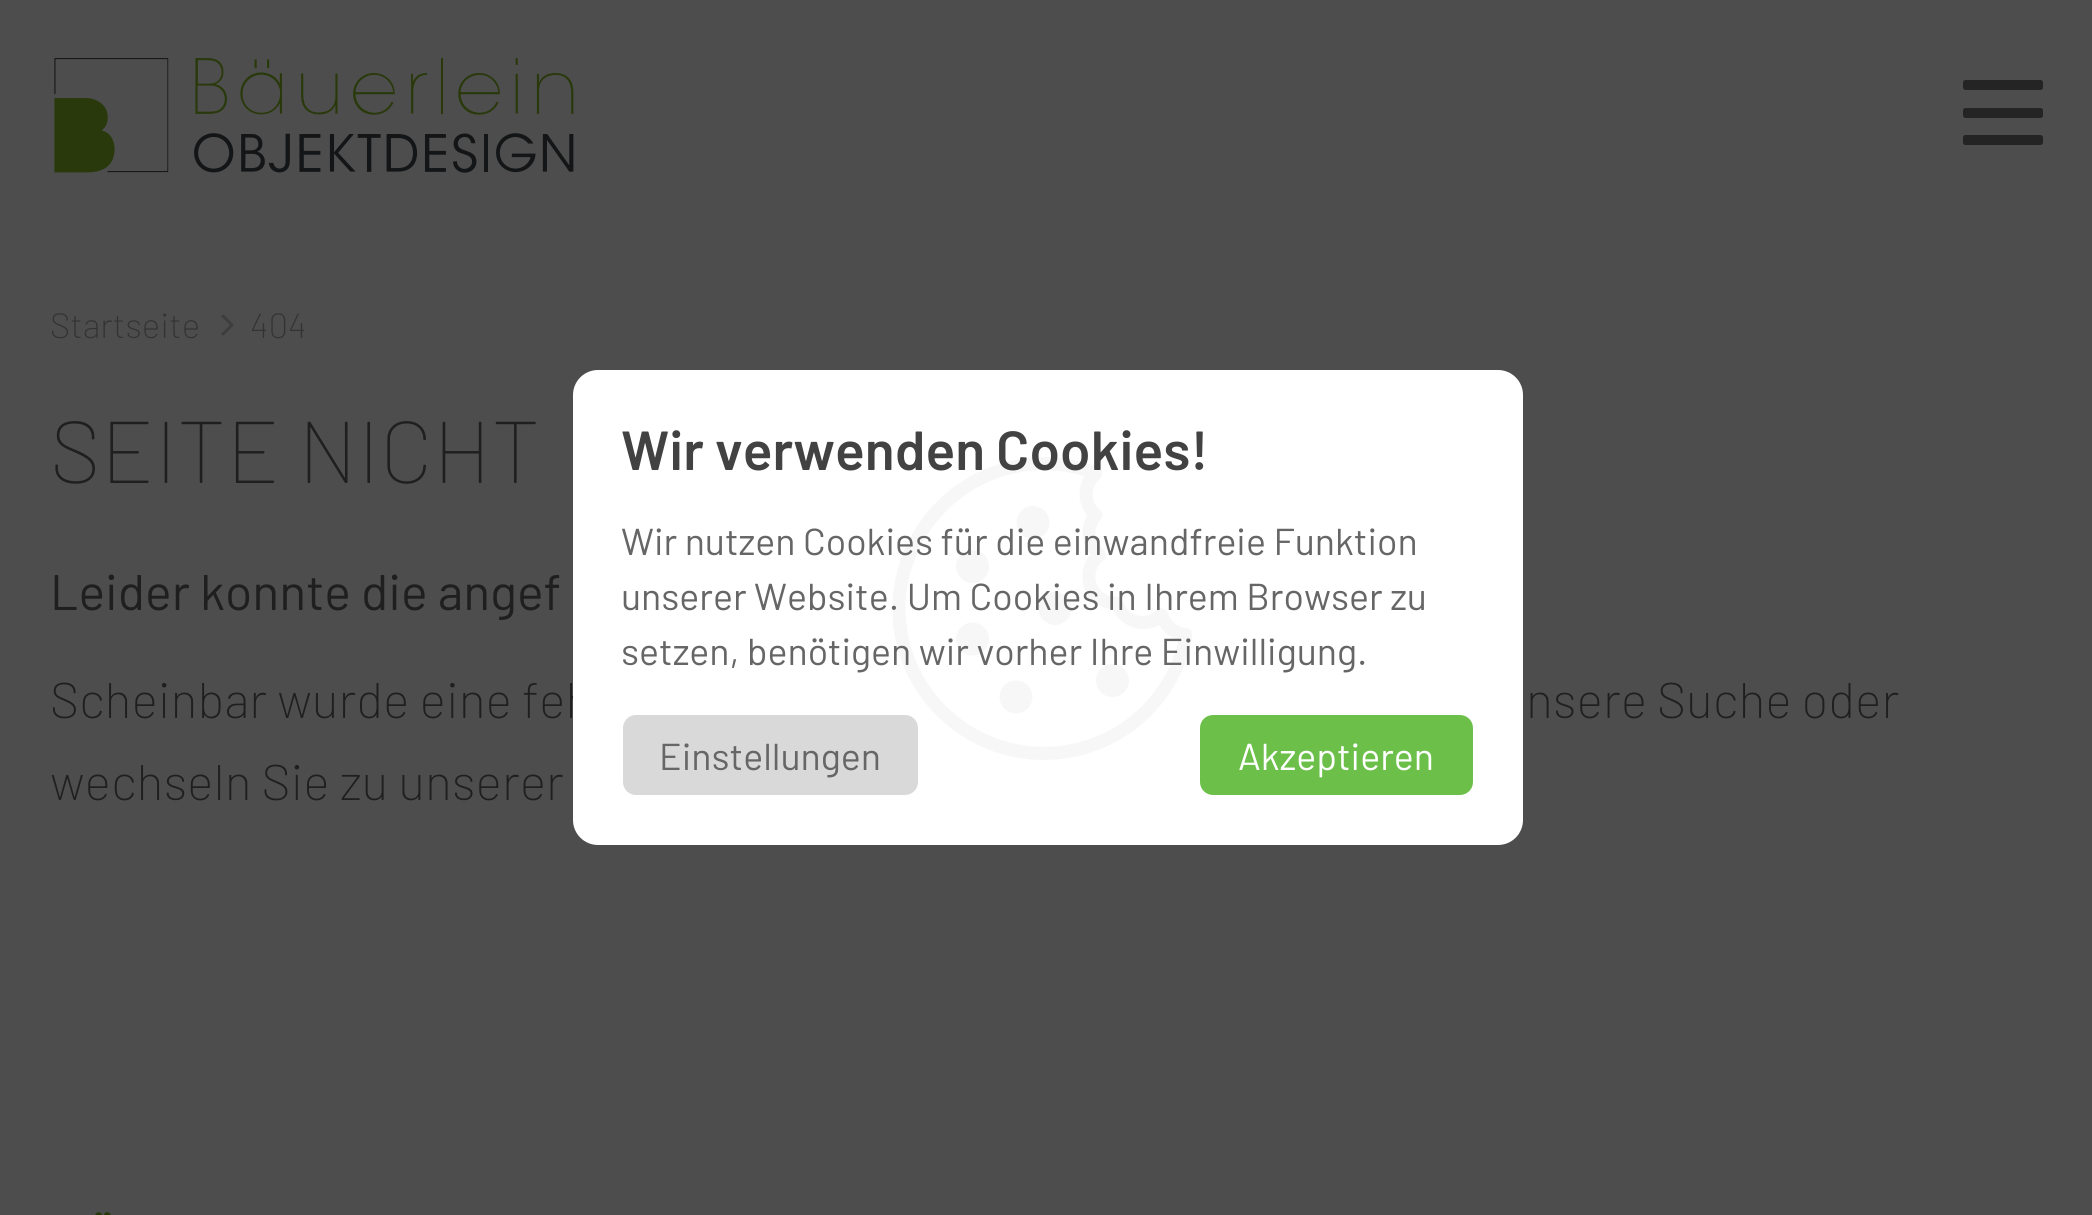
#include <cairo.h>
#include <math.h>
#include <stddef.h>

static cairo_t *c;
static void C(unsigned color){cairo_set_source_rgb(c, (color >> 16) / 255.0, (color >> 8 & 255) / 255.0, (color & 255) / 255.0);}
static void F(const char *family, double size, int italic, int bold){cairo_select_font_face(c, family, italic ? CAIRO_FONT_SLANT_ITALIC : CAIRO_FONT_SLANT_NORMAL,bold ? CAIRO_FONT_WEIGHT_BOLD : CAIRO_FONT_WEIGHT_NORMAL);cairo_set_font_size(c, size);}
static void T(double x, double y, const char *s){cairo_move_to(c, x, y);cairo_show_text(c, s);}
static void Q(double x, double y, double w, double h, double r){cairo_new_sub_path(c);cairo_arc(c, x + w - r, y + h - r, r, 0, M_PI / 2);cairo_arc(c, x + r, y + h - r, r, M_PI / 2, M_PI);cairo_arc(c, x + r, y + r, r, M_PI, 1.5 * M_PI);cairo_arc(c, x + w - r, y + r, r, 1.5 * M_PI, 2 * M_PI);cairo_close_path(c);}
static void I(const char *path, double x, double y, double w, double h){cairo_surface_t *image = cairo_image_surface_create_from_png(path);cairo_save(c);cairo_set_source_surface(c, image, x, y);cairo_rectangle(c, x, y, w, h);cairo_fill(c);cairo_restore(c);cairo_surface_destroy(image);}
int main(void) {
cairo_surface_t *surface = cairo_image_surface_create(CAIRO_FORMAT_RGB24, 2092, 1215);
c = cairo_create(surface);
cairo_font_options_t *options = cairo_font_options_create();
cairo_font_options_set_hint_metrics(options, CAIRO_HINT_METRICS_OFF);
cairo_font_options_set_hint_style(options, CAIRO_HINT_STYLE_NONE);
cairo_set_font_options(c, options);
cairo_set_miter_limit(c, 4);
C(0x4d4d4d);
cairo_paint(c);
I("1.png",54,58,520,115);
C(0x242424);
Q(1963,80,80,10,2.5);
cairo_fill(c);
Q(1963,108,80,10,2.5);
cairo_fill(c);
Q(1963,135,80,10,2.5);
cairo_fill(c);
cairo_new_path(c);
cairo_move_to(c,223,316);
cairo_line_to(c,232,325);
cairo_line_to(c,223,334);
C(0x3d3d3d);
cairo_set_line_width(c,2.9);
cairo_set_line_cap(c,CAIRO_LINE_CAP_ROUND);
cairo_set_line_join(c,CAIRO_LINE_JOIN_ROUND);
cairo_stroke(c);
F("Barlow ExtraLight",35,0,0);
C(0x333333);
T(50,338,"Startseite");
T(250,338,"404");
F("Barlow Thin",87.5,0,0);
C(0x1f1f1f);
T(50,483,"SEITE NICHT");
F("Barlow",50,0,0);
T(50,610,"Leider konnte die angef");
F("Barlow ExtraLight",50,0,0);
T(50,718,"Scheinbar wurde eine feh");
T(1526,718,"nsere Suche oder");
T(50,800,"wechseln Sie zu unserer");
C(0xffffff);
Q(573,370,950,475,25);
cairo_fill(c);
I("2.png",893,457,299,303);
F("Barlow SemiBold",55,0,0);
C(0x424242);
T(621,470,"Wir verwenden Cookies!");
F("Barlow",37.5,0,0);
C(0x666666);
T(621,555,"Wir nutzen Cookies für die einwandfreie Funktion");
T(621,610,"unserer Website. Um Cookies in Ihrem Browser zu");
T(621,665,"setzen, benötigen wir vorher Ihre Einwilligung.");
C(0xd9d9d9);
Q(623,715,295,80,13);
cairo_fill(c);
C(0x666666);
T(659,770,"Einstellungen");
C(0x6cc04a);
Q(1200,715,273,80,13);
cairo_fill(c);
C(0xffffff);
T(1238,770,"Akzeptieren");
I("3.png",95,1212,16,3);
cairo_surface_write_to_png(surface, "o.png");
cairo_font_options_destroy(options);
cairo_destroy(c);
cairo_surface_destroy(surface);
return 0;
}
